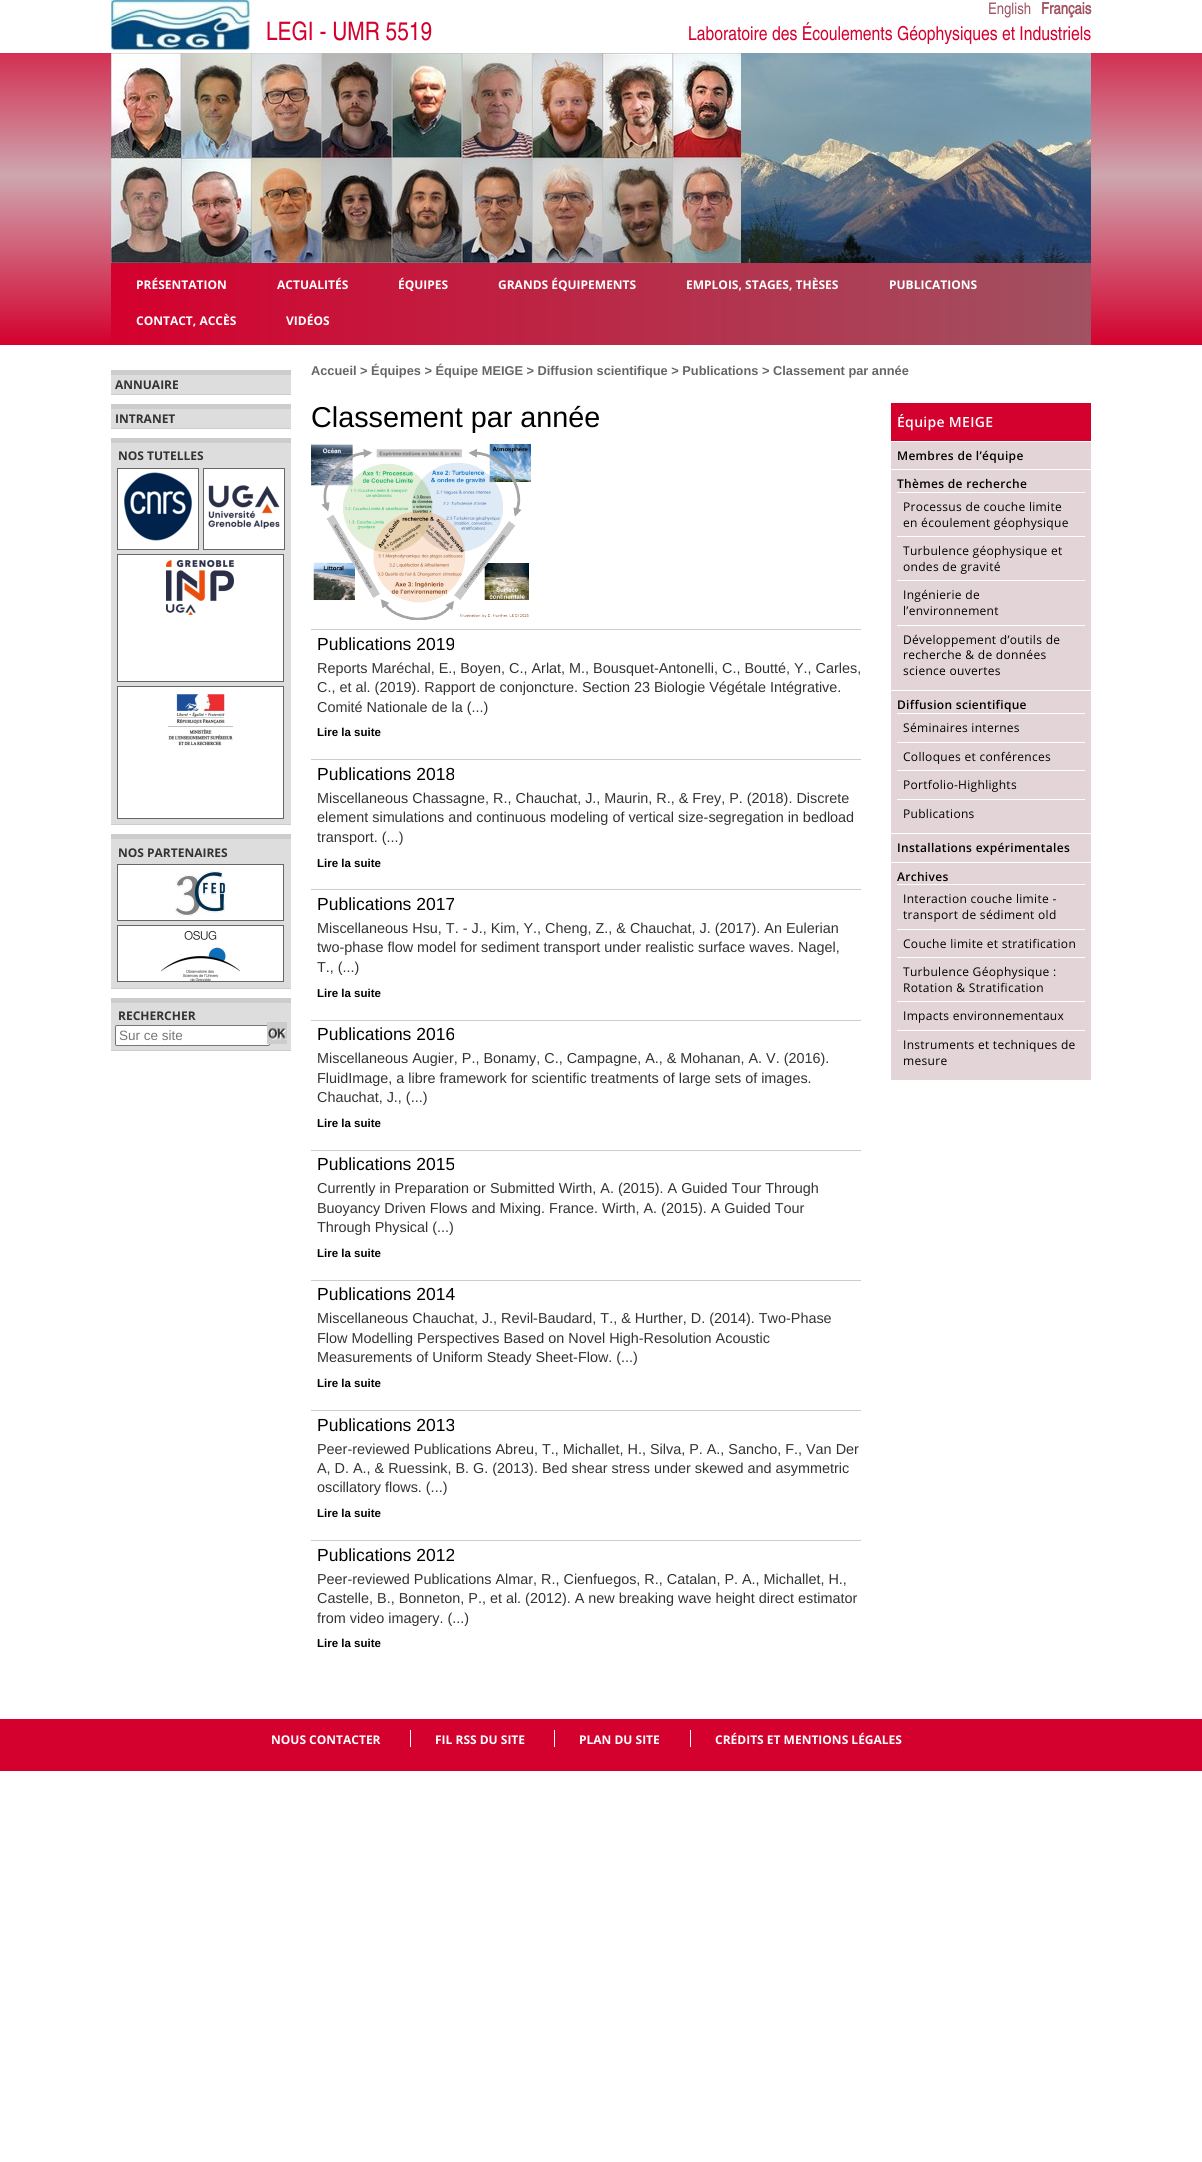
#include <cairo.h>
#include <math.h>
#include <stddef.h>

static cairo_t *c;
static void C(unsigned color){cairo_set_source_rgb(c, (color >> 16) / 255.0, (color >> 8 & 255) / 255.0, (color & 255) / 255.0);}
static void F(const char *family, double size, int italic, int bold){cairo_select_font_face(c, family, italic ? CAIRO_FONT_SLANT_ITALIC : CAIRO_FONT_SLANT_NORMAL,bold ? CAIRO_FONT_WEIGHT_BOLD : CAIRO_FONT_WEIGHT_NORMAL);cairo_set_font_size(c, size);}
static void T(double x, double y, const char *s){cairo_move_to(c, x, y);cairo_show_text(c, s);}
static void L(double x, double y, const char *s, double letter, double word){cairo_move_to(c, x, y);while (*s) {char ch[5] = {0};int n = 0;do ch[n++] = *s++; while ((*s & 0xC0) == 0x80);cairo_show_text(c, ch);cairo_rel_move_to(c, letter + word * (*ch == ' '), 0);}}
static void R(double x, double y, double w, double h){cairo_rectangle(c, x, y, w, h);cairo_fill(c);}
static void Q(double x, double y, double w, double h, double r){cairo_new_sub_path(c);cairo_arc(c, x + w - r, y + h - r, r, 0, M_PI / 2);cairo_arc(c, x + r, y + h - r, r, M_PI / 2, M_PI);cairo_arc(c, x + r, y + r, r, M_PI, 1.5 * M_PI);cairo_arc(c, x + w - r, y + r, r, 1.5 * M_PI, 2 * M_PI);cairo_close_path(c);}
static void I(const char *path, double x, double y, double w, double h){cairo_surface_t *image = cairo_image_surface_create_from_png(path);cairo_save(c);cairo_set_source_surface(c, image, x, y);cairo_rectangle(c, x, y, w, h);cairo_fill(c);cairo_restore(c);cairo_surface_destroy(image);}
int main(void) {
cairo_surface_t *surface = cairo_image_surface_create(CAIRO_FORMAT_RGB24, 1202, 2162);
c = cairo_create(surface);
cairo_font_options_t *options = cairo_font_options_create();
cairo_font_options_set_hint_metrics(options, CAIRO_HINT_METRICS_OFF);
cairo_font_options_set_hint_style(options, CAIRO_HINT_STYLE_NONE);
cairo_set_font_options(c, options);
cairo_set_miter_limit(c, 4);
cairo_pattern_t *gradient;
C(0xffffff);
cairo_paint(c);
gradient = cairo_pattern_create_linear(601,0,601,345);
cairo_pattern_add_color_stop_rgba(gradient,.01,0.831,0,0.176,1);
cairo_pattern_add_color_stop_rgba(gradient,.51,0.808,0.651,0.686,1);
cairo_pattern_add_color_stop_rgba(gradient,1,0.831,0,0.176,1);
cairo_set_source(c,gradient);
cairo_pattern_destroy(gradient);
R(0,53,1202,292);
I("1.png",111,0,139,50);
F("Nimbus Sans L",16,0,0);
C(0xa05262);
T(988,14,"English");
F("Nimbus Sans L",16,0,1);
T(1041,14,"Français");
F("Nimbus Sans L",25.5,0,0);
C(0xd4002d);
T(266,40,"LEGI - UMR 5519");
F("Nimbus Sans L",19.2,0,0);
T(688,40,"Laboratoire des Écoulements Géophysiques et Industriels");
I("2.png",111,53,980,210);
gradient = cairo_pattern_create_linear(111,304,1091,304);
cairo_pattern_add_color_stop_rgba(gradient,0,0.831,0,0.176,1);
cairo_pattern_add_color_stop_rgba(gradient,1,0.627,0.322,0.384,1);
cairo_set_source(c,gradient);
cairo_pattern_destroy(gradient);
R(111,263,980,82);
F("Open Sans",12,0,1);
C(0xffffff);
T(136,289,"PRÉSENTATION");
T(277,289,"ACTUALITÉS");
T(398,289,"ÉQUIPES");
T(498,289,"GRANDS ÉQUIPEMENTS");
T(686,289,"EMPLOIS, STAGES, THÈSES");
T(889,289,"PUBLICATIONS");
T(136,325,"CONTACT, ACCÈS");
T(286,325,"VIDÉOS");
C(0xdddddd);
R(111,375,180,19);
C(0xcccccc);
R(111,370,180,5);
R(111,394,180,1);
C(0x333333);
T(115,389,"ANNUAIRE");
C(0xdddddd);
R(111,409,180,19);
C(0xcccccc);
R(111,404,180,5);
R(111,428,180,1);
C(0x333333);
T(115,423,"INTRANET");
C(0xdddddd);
R(111,443,180,381);
C(0xcccccc);
R(111,438,180,5);
R(111,824,180,1);
C(0x333333);
T(118,460,"NOS TUTELLES");
C(0xffffff);
cairo_rectangle(c,117.5,468.5,81,81);
cairo_fill_preserve(c);
C(0x666666);
cairo_set_line_width(c,1);
cairo_stroke(c);
I("3.png",124,472,68,69);
C(0xffffff);
cairo_rectangle(c,203.5,468.5,81,81);
cairo_fill_preserve(c);
C(0x666666);
cairo_stroke(c);
I("4.png",208,485,72,44);
C(0xffffff);
cairo_rectangle(c,117.5,554.5,166,127);
cairo_fill_preserve(c);
C(0x666666);
cairo_stroke(c);
I("5.png",166,560,68,55);
C(0xffffff);
cairo_rectangle(c,117.5,686.5,166,132);
cairo_fill_preserve(c);
C(0x666666);
cairo_stroke(c);
I("6.png",168,694,65,52);
C(0xdddddd);
R(111,839,180,149);
C(0xcccccc);
R(111,834,180,5);
R(111,988,180,1);
C(0x333333);
T(118,857,"NOS PARTENAIRES");
C(0xffffff);
cairo_rectangle(c,117.5,864.5,166,56);
cairo_fill_preserve(c);
C(0x666666);
cairo_stroke(c);
I("7.png",175,871,51,45);
C(0xffffff);
cairo_rectangle(c,117.5,925.5,166,56);
cairo_fill_preserve(c);
C(0x666666);
cairo_stroke(c);
I("8.png",161,931,79,50);
C(0xdddddd);
R(111,1003,180,47);
C(0xcccccc);
R(111,998,180,5);
R(111,1050,180,1);
C(0x333333);
T(118,1020,"RECHERCHER");
C(0xffffff);
Q(115.5,1025.5,154,20,1.5);
cairo_fill_preserve(c);
C(0x767676);
cairo_stroke(c);
F("Liberation Sans",13.5,0,0);
C(0x757575);
T(119,1040,"Sur ce site");
I("9.png",267,1022,20,22);
F("Liberation Sans",12.8,0,1);
C(0x666666);
T(311,375,"Accueil > Équipes > Équipe MEIGE > Diffusion scientifique > Publications > Classement par année");
F("Liberation Sans",28.75,0,0);
C(0x000000);
T(311,427,"Classement par année");
I("10.png",311,443,220,177);
C(0xcccccc);
R(311,629,550,1);
F("Liberation Sans",17.5,0,0);
C(0x000000);
T(317,650,"Publications 2019");
F("Liberation Sans",14.4,0,0);
C(0x333333);
T(317,673,"Reports Maréchal, E., Boyen, C., Arlat, M., Bousquet-Antonelli, C., Boutté, Y., Carles,");
T(317,692,"C., et al. (2019). Rapport de conjoncture. Section 23 Biologie Végétale Intégrative.");
T(317,712,"Comité Nationale de la (...)");
F("Liberation Sans",11.5,0,1);
C(0x000000);
T(317,736,"Lire la suite");
C(0xcccccc);
R(311,759,550,1);
F("Liberation Sans",17.5,0,0);
C(0x000000);
T(317,780,"Publications 2018");
F("Liberation Sans",14.4,0,0);
C(0x333333);
T(317,803,"Miscellaneous Chassagne, R., Chauchat, J., Maurin, R., & Frey, P. (2018). Discrete");
T(317,822,"element simulations and continuous modeling of vertical size-segregation in bedload");
T(317,842,"transport. (...)");
F("Liberation Sans",11.5,0,1);
C(0x000000);
T(317,867,"Lire la suite");
C(0xcccccc);
R(311,889,550,1);
F("Liberation Sans",17.5,0,0);
C(0x000000);
T(317,910,"Publications 2017");
F("Liberation Sans",14.4,0,0);
C(0x333333);
T(317,933,"Miscellaneous Hsu, T. - J., Kim, Y., Cheng, Z., & Chauchat, J. (2017). An Eulerian");
T(317,952,"two-phase flow model for sediment transport under realistic surface waves. Nagel,");
T(317,972,"T., (...)");
F("Liberation Sans",11.5,0,1);
C(0x000000);
T(317,997,"Lire la suite");
C(0xcccccc);
R(311,1020,550,1);
F("Liberation Sans",17.5,0,0);
C(0x000000);
T(317,1040,"Publications 2016");
F("Liberation Sans",14.4,0,0);
C(0x333333);
T(317,1063,"Miscellaneous Augier, P., Bonamy, C., Campagne, A., & Mohanan, A. V. (2016).");
T(317,1083,"FluidImage, a libre framework for scientific treatments of large sets of images.");
T(317,1102,"Chauchat, J., (...)");
F("Liberation Sans",11.5,0,1);
C(0x000000);
T(317,1127,"Lire la suite");
C(0xcccccc);
R(311,1150,550,1);
F("Liberation Sans",17.5,0,0);
C(0x000000);
T(317,1170,"Publications 2015");
F("Liberation Sans",14.4,0,0);
C(0x333333);
T(317,1193,"Currently in Preparation or Submitted Wirth, A. (2015). A Guided Tour Through");
T(317,1213,"Buoyancy Driven Flows and Mixing. France. Wirth, A. (2015). A Guided Tour");
T(317,1232,"Through Physical (...)");
F("Liberation Sans",11.5,0,1);
C(0x000000);
T(317,1257,"Lire la suite");
C(0xcccccc);
R(311,1280,550,1);
F("Liberation Sans",17.5,0,0);
C(0x000000);
T(317,1300,"Publications 2014");
F("Liberation Sans",14.4,0,0);
C(0x333333);
T(317,1323,"Miscellaneous Chauchat, J., Revil-Baudard, T., & Hurther, D. (2014). Two-Phase");
T(317,1343,"Flow Modelling Perspectives Based on Novel High-Resolution Acoustic");
T(317,1362,"Measurements of Uniform Steady Sheet-Flow. (...)");
F("Liberation Sans",11.5,0,1);
C(0x000000);
T(317,1387,"Lire la suite");
C(0xcccccc);
R(311,1410,550,1);
F("Liberation Sans",17.5,0,0);
C(0x000000);
T(317,1431,"Publications 2013");
F("Liberation Sans",14.4,0,0);
C(0x333333);
T(317,1454,"Peer-reviewed Publications Abreu, T., Michallet, H., Silva, P. A., Sancho, F., Van Der");
T(317,1473,"A, D. A., & Ruessink, B. G. (2013). Bed shear stress under skewed and asymmetric");
T(317,1492,"oscillatory flows. (...)");
F("Liberation Sans",11.5,0,1);
C(0x000000);
T(317,1517,"Lire la suite");
C(0xcccccc);
R(311,1540,550,1);
F("Liberation Sans",17.5,0,0);
C(0x000000);
T(317,1561,"Publications 2012");
F("Liberation Sans",14.4,0,0);
C(0x333333);
T(317,1584,"Peer-reviewed Publications Almar, R., Cienfuegos, R., Catalan, P. A., Michallet, H.,");
T(317,1603,"Castelle, B., Bonneton, P., et al. (2012). A new breaking wave height direct estimator");
T(317,1623,"from video imagery. (...)");
F("Liberation Sans",11.5,0,1);
C(0x000000);
T(317,1647,"Lire la suite");
C(0xe2d4d7);
R(891,442,200,638);
C(0xd4002d);
R(891,403,200,38);
F("Open Sans SemiBold",14,0,0);
C(0xffffff);
L(897,427,"Équipe MEIGE",.3,0);
F("Open Sans SemiBold",12,0,0);
C(0x000000);
L(897,460,"Membres de l’équipe",.3,0);
C(0xffffff);
R(891,469,200,1);
C(0x000000);
L(897,488,"Thèmes de recherche",.3,0);
C(0xffffff);
R(897,492,188,1);
F("Open Sans",12,0,0);
C(0x000000);
L(903,511,"Processus de couche limite",.3,0);
L(903,527,"en écoulement géophysique",.3,0);
C(0xffffff);
R(897,536,188,1);
C(0x000000);
L(903,555,"Turbulence géophysique et",.3,0);
L(903,571,"ondes de gravité",.3,0);
C(0xffffff);
R(897,580,188,1);
C(0x000000);
L(903,599,"Ingénierie de",.3,0);
L(903,615,"l’environnement",.3,0);
C(0xffffff);
R(897,625,188,1);
C(0x000000);
L(903,644,"Développement d’outils de",.3,0);
L(903,659,"recherche & de données",.3,0);
L(903,675,"science ouvertes",.3,0);
C(0xffffff);
R(891,690,200,1);
F("Open Sans SemiBold",12,0,0);
C(0x000000);
L(897,709,"Diffusion scientifique",.3,0);
C(0xffffff);
R(897,713,188,1);
F("Open Sans",12,0,0);
C(0x000000);
L(903,732,"Séminaires internes",.3,0);
C(0xffffff);
R(897,742,188,1);
C(0x000000);
L(903,761,"Colloques et conférences",.3,0);
C(0xffffff);
R(897,770,188,1);
C(0x000000);
L(903,789,"Portfolio-Highlights",.3,0);
C(0xffffff);
R(897,799,188,1);
C(0x000000);
L(903,818,"Publications",.3,0);
C(0xffffff);
R(891,833,200,1);
F("Open Sans SemiBold",12,0,0);
C(0x000000);
L(897,852,"Installations expérimentales",.3,0);
C(0xffffff);
R(891,862,200,1);
C(0x000000);
L(897,881,"Archives",.3,0);
C(0xffffff);
R(897,884,188,1);
F("Open Sans",12,0,0);
C(0x000000);
L(903,903,"Interaction couche limite -",.3,0);
L(903,919,"transport de sédiment old",.3,0);
C(0xffffff);
R(897,929,188,1);
C(0x000000);
L(903,948,"Couche limite et stratification",.3,0);
C(0xffffff);
R(897,957,188,1);
C(0x000000);
L(903,976,"Turbulence Géophysique :",.3,0);
L(903,992,"Rotation & Stratification",.3,0);
C(0xffffff);
R(897,1001,188,1);
C(0x000000);
L(903,1020,"Impacts environnementaux",.3,0);
C(0xffffff);
R(897,1030,188,1);
C(0x000000);
L(903,1049,"Instruments et techniques de",.3,0);
L(903,1065,"mesure",.3,0);
C(0xd4002d);
R(0,1719,1202,52);
F("Open Sans",12,0,1);
C(0xffffff);
T(271,1744,"NOUS CONTACTER");
R(410,1730,1,17);
T(435,1744,"FIL RSS DU SITE");
R(554,1730,1,17);
T(579,1744,"PLAN DU SITE");
R(690,1730,1,17);
T(715,1744,"CRÉDITS ET MENTIONS LÉGALES");
cairo_surface_write_to_png(surface, "o.png");
cairo_font_options_destroy(options);
cairo_destroy(c);
cairo_surface_destroy(surface);
return 0;
}
